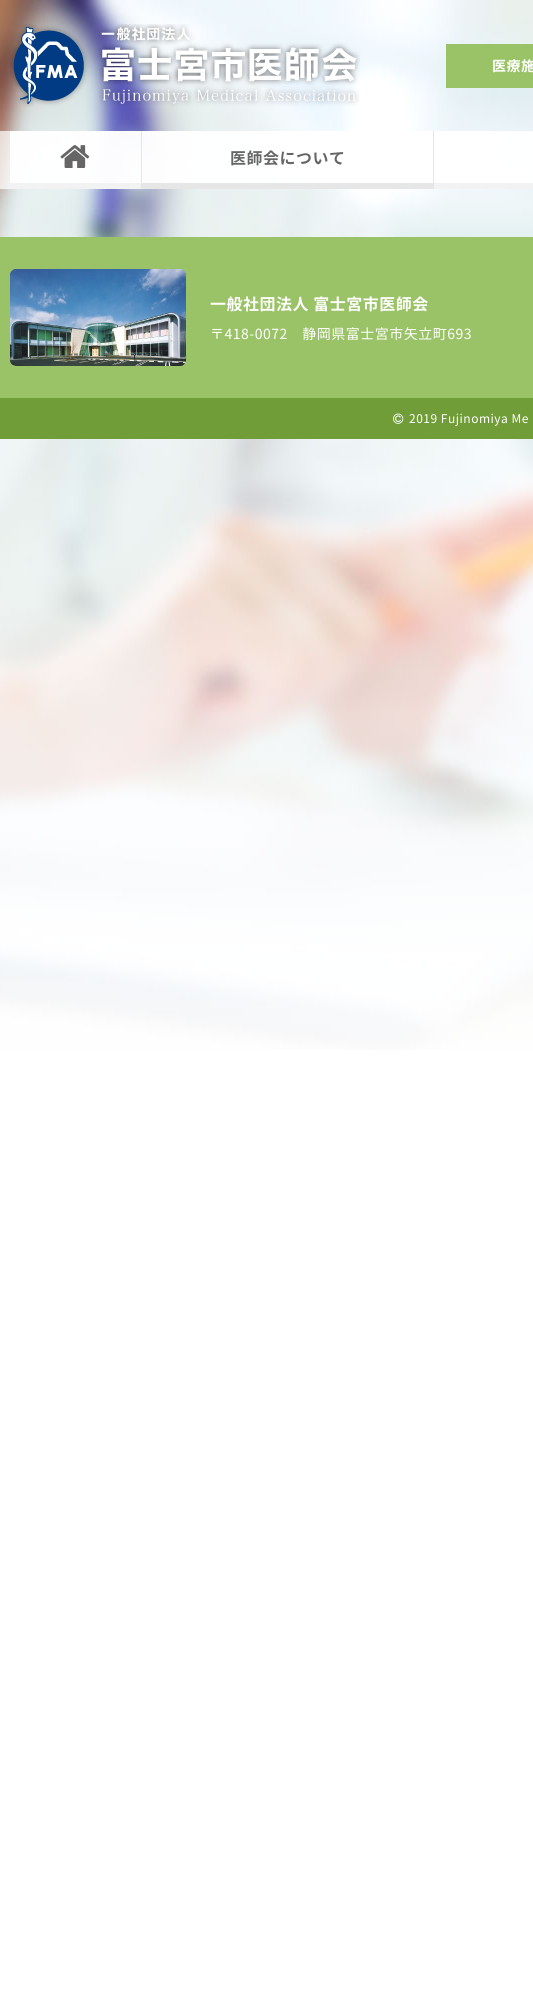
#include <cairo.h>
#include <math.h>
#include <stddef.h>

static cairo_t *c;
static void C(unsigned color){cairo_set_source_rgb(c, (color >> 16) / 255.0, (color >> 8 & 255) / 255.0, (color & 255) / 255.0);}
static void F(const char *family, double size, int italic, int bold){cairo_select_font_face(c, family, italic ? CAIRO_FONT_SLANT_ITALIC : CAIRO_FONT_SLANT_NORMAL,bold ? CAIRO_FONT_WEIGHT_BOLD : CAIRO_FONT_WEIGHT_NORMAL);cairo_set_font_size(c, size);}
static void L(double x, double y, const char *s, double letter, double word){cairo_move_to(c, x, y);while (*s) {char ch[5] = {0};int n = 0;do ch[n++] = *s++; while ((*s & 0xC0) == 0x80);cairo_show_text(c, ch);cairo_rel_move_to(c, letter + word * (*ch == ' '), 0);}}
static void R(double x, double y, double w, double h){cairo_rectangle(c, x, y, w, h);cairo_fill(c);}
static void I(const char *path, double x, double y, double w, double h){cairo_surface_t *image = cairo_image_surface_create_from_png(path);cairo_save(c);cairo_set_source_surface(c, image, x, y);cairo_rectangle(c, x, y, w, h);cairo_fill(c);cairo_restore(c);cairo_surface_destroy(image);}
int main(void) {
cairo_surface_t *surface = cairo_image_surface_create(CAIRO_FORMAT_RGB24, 533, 2012);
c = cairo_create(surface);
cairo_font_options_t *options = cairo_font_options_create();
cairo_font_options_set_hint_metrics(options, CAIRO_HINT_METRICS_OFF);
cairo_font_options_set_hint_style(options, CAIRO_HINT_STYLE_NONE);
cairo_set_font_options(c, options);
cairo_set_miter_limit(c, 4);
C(0xffffff);
cairo_paint(c);
I("1.png",0,0,533,1050);
I("2.png",10,24,350,83);
C(0x9ac266);
R(446,44,87,44);
F("Noto Sans JP",14,0,1);
C(0xffffff);
L(492,71,"医療施",.5,0);
cairo_set_source_rgba(c,1,1,1,0.7);
R(0,131,533,58);
cairo_set_source_rgba(c,1,1,1,0.9);
R(10,131,131,52);
C(0xf2f2f2);
R(10,183,131,6);
I("3.png",60,145,30,23);
cairo_set_source_rgba(c,1,1,1,0.9);
R(142,131,291,52);
C(0xe6e6e6);
R(141,131,1,58);
R(142,183,291,6);
F("Noto Sans JP",16,0,1);
C(0x666666);
L(230,164,"医師会について",.5,0);
cairo_set_source_rgba(c,1,1,1,0.9);
R(434,131,99,52);
C(0xe6e6e6);
R(433,131,1,58);
C(0xf2f2f2);
R(434,183,99,6);
C(0x9ac266);
R(0,237,533,161);
I("4.png",10,269,176,97);
C(0xffffff);
L(210,310,"一般社団法人 富士宮市医師会",.5,0);
F("Noto Sans JP",14,0,0);
L(210,339,"〒418-0072　静岡県富士宮市矢立町693",.5,0);
C(0x719d39);
R(0,398,533,41);
I("5.png",393,413,11,11);
F("Noto Sans JP",12,0,0);
C(0xffffff);
L(409,423,"2019 Fujinomiya Me",.5,0);
cairo_surface_write_to_png(surface, "o.png");
cairo_font_options_destroy(options);
cairo_destroy(c);
cairo_surface_destroy(surface);
return 0;
}
